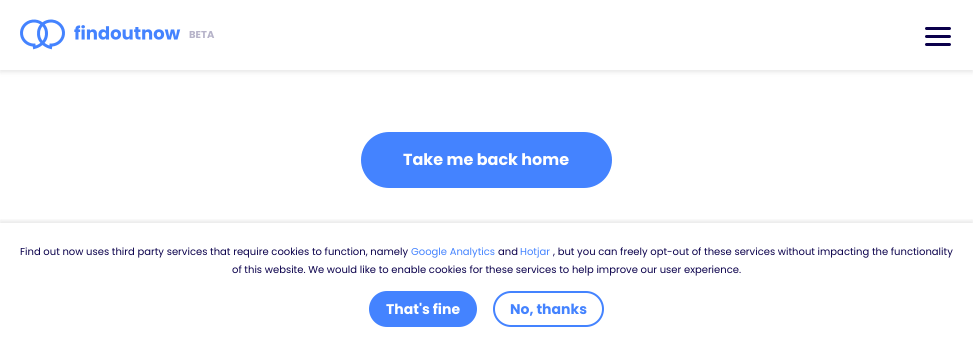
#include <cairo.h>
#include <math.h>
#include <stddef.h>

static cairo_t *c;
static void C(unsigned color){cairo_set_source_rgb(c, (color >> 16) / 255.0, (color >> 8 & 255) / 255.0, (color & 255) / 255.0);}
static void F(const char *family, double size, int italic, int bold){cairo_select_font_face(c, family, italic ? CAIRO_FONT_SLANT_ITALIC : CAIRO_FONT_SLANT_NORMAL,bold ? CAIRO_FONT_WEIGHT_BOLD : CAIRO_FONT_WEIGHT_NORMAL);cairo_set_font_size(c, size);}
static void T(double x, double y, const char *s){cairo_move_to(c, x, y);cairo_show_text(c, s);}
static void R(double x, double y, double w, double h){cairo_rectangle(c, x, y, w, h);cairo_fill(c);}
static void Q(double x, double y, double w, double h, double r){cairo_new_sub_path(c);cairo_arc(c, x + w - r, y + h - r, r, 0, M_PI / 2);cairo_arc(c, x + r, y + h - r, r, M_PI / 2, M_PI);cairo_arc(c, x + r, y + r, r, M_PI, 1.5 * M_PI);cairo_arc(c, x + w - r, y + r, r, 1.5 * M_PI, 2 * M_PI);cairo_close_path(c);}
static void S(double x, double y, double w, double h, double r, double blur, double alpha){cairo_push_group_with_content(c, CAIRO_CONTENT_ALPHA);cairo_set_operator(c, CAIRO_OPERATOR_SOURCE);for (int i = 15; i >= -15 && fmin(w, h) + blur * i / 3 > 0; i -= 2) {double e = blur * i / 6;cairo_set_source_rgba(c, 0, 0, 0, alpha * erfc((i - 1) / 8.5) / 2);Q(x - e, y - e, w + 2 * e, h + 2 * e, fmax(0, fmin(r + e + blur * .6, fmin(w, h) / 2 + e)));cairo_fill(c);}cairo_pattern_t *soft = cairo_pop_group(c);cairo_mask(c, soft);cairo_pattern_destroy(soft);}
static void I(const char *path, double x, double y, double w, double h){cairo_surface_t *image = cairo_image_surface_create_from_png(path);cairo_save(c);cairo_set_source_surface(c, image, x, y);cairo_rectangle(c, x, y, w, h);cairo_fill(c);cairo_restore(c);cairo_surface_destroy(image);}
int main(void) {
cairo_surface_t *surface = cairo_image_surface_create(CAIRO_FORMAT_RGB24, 973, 347);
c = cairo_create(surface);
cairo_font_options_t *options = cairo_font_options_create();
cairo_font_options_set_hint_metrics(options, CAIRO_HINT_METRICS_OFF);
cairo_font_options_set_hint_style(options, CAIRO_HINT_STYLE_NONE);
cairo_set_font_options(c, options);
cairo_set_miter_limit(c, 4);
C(0xffffff);
cairo_paint(c);
C(0x000000);
S(0,2,973,70,0,2.5,.1);
C(0xffffff);
R(0,0,973,70);
I("1.png",20,19,161,31);
F("Poppins",10,0,1);
C(0xb6b3c9);
T(189,38,"BETA");
C(0x0a004b);
Q(925,27,26,3,1.5);
cairo_fill(c);
Q(925,35,26,3,1.5);
cairo_fill(c);
Q(925,43,26,3,1.5);
cairo_fill(c);
C(0x4483ff);
Q(362,133,249,54,27);
cairo_fill_preserve(c);
cairo_stroke(c);
F("Poppins",16,0,1);
C(0xffffff);
T(403,165,"Take me back home");
cairo_save(c);
cairo_rectangle(c,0,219,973,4);
cairo_clip(c);
C(0x000000);
S(0,221,973,124,0,2.5,.1);
cairo_restore(c);
F("Poppins",10,0,0);
C(0x0a004b);
T(20,255,"Find out now uses third party services that require cookies to function, namely");
C(0x4483ff);
T(411,255,"Google Analytics");
C(0x0a004b);
T(498,255,"and");
C(0x4483ff);
T(520,255,"Hotjar");
C(0x0a004b);
T(553,255,", but you can freely opt-out of these services without impacting the functionality");
T(232,273,"of this website. We would like to enable cookies for these services to help improve our user experience.");
C(0x4483ff);
Q(370,292,106,34,17);
cairo_fill_preserve(c);
cairo_stroke(c);
F("Poppins",14,0,1);
C(0xffffff);
T(386,314,"That's fine");
Q(494,292,109,34,17);
C(0x4483ff);
cairo_stroke(c);
T(510,314,"No, thanks");
cairo_surface_write_to_png(surface, "o.png");
cairo_font_options_destroy(options);
cairo_destroy(c);
cairo_surface_destroy(surface);
return 0;
}
